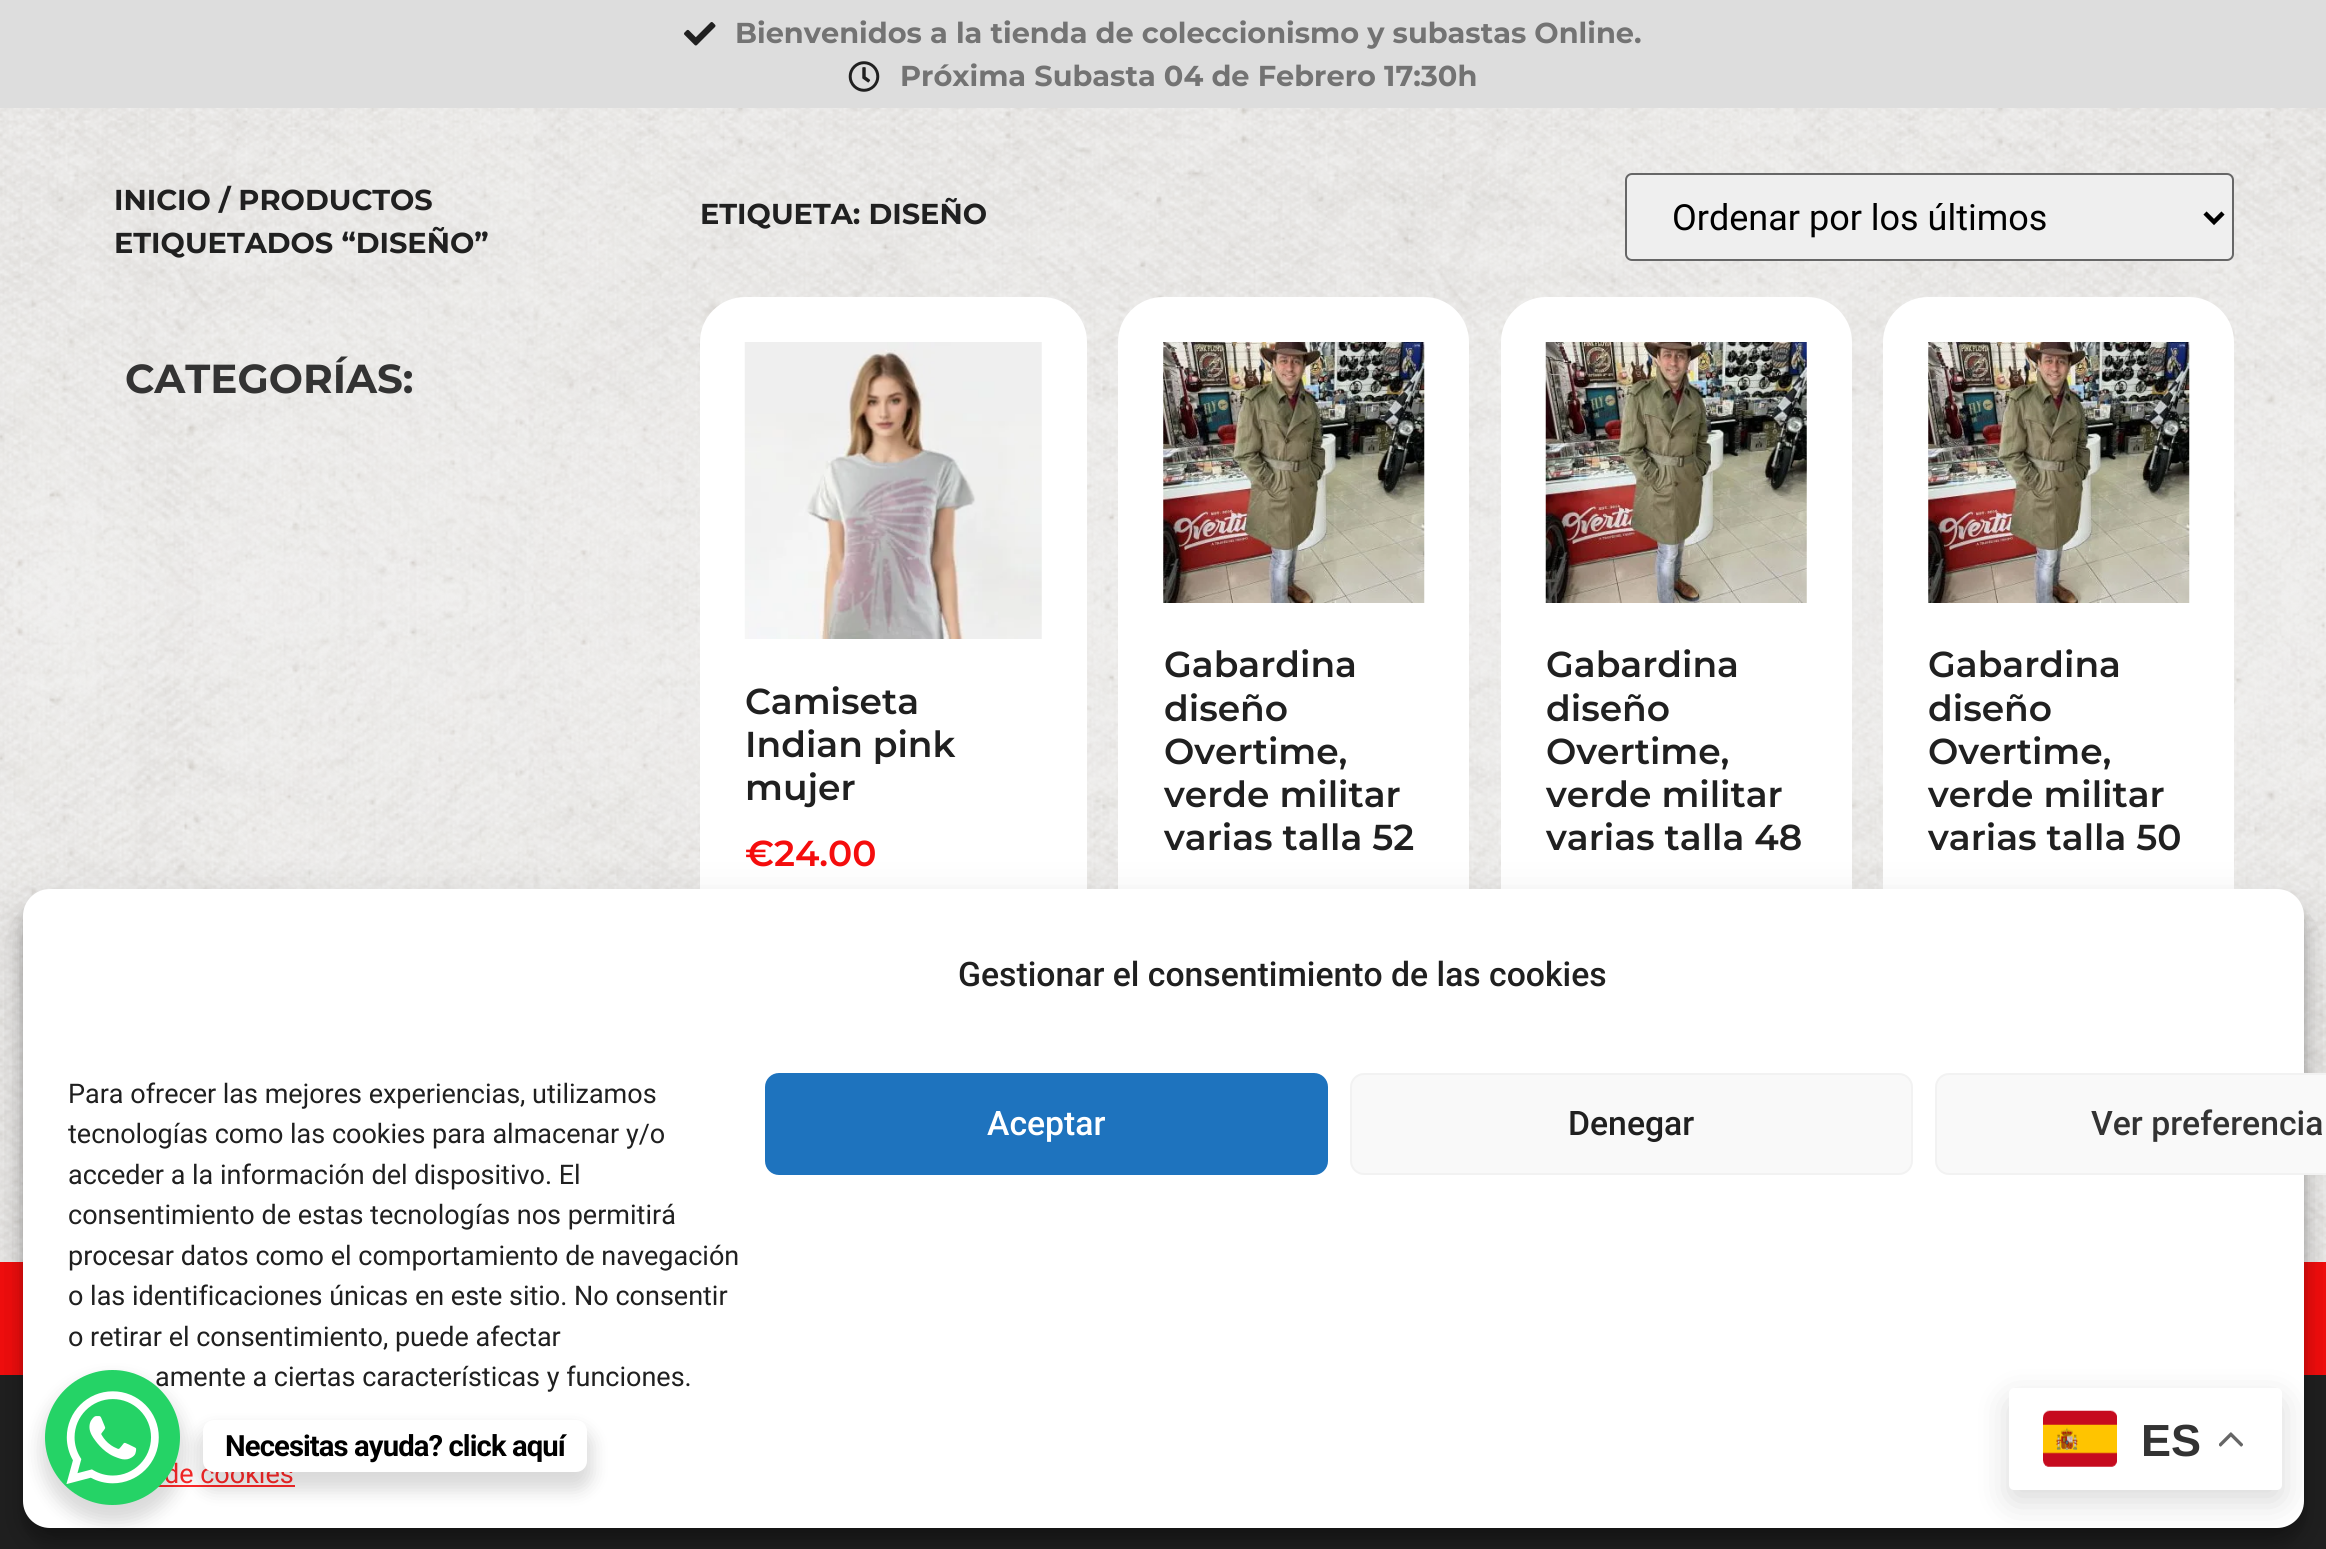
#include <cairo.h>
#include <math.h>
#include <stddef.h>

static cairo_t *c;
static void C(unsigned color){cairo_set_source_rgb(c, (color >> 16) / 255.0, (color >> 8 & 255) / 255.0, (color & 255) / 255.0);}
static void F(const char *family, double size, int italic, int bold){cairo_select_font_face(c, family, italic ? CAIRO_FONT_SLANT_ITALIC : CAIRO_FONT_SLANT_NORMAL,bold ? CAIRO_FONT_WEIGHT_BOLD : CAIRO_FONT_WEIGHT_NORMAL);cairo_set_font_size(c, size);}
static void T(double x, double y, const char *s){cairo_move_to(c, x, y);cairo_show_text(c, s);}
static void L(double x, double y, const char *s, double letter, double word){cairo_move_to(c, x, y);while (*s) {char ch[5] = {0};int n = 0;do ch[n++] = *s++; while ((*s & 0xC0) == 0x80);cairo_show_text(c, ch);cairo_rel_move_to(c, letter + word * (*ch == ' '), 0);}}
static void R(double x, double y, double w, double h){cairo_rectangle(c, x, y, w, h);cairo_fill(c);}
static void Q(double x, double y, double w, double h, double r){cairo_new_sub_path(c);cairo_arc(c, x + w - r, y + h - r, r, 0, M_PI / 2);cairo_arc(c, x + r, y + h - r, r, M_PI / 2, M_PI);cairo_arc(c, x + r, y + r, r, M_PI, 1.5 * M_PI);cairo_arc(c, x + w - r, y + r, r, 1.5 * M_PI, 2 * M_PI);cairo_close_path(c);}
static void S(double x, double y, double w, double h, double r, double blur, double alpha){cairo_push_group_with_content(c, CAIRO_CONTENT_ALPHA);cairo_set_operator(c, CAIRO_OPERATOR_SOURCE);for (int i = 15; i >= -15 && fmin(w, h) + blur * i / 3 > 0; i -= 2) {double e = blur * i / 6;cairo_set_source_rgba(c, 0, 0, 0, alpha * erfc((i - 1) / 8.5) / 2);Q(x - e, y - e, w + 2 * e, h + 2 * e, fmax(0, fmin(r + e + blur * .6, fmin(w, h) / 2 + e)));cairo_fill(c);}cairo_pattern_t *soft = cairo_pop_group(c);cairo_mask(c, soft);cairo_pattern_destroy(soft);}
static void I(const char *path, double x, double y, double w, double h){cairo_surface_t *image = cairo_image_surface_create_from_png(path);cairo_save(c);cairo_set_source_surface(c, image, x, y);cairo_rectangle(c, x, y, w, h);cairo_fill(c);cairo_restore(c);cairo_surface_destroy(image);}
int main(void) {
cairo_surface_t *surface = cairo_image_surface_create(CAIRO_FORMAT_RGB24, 2326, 1549);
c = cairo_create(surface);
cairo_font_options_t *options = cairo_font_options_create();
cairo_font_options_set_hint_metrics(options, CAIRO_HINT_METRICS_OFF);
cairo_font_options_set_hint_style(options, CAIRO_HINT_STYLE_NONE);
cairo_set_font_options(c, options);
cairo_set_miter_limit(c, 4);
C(0xfafafa);
cairo_paint(c);
I("1.png",0,108,2326,1154);
C(0xdddddd);
R(0,0,2326,108);
I("2.png",684,22,32,24);
F("Montserrat",28.8,0,1);
C(0x737373);
T(735,43,"Bienvenidos a la tienda de coleccionismo y subastas Online.");
I("3.png",848,61,32,31);
T(900,86,"Próxima Subasta 04 de Febrero 17:30h");
C(0x202020);
T(114,210,"INICIO / PRODUCTOS");
T(114,253,"ETIQUETADOS “DISEÑO”");
F("Montserrat",40.5,0,1);
C(0x333333);
T(125,393,"CATEGORÍAS:");
F("Montserrat",28.8,0,1);
C(0x202020);
T(700,224,"ETIQUETA: DISEÑO");
C(0xefefef);
Q(1626,174,607,86,6);
cairo_fill_preserve(c);
C(0x666666);
cairo_stroke(c);
cairo_new_path(c);
cairo_move_to(c,2205,213);
cairo_line_to(c,2214,222);
cairo_line_to(c,2223,213);
C(0x000000);
cairo_set_line_width(c,4.5);
cairo_stroke(c);
F("Roboto",36,0,0);
T(1672,230,"Ordenar por los últimos");
C(0xffffff);
Q(700,297,387,828,45);
cairo_fill(c);
I("4.png",744,342,298,297);
F("Montserrat SemiBold",36,0,0);
C(0x202020);
T(745,714,"Camiseta");
T(745,757,"Indian pink");
T(745,800,"mujer");
C(0xf50d0d);
T(745,866,"€24.00");
C(0xffffff);
Q(1118,297,351,828,45);
cairo_fill(c);
I("5.png",1163,342,262,261);
C(0x202020);
T(1164,677,"Gabardina");
T(1164,721,"diseño");
T(1164,764,"Overtime,");
T(1164,807,"verde militar");
T(1164,850,"varias talla 52");
C(0xffffff);
Q(1501,297,351,828,45);
cairo_fill(c);
I("6.png",1545,342,262,261);
C(0x202020);
T(1546,677,"Gabardina");
T(1546,721,"diseño");
T(1546,764,"Overtime,");
T(1546,807,"verde militar");
T(1546,850,"varias talla 48");
C(0xffffff);
Q(1883,297,351,828,45);
cairo_fill(c);
I("7.png",1928,342,262,261);
C(0x202020);
T(1928,677,"Gabardina");
T(1928,721,"diseño");
T(1928,764,"Overtime,");
T(1928,807,"verde militar");
T(1928,850,"varias talla 50");
C(0xf50d0d);
R(0,1262,2326,113);
C(0x202020);
R(0,1375,2326,174);
C(0x000000);
S(23,902,2281,639,27,7,.23);
S(23,911,2281,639,27,22.5,.19);
C(0xffffff);
Q(23,889,2281,639,27);
cairo_fill(c);
F("Roboto Medium",33.75,0,0);
C(0x202020);
T(958,986,"Gestionar el consentimiento de las cookies");
F("Roboto",27,0,0);
T(68,1103,"Para ofrecer las mejores experiencias, utilizamos");
cairo_save(c);
cairo_rectangle(c,68,1073,675,336);
cairo_clip(c);
T(68,1143,"tecnologías como las cookies para almacenar y/o");
cairo_restore(c);
T(68,1184,"acceder a la información del dispositivo. El");
T(68,1224,"consentimiento de estas tecnologías nos permitirá");
T(68,1265,"procesar datos como el comportamiento de navegación");
T(68,1305,"o las identificaciones únicas en este sitio. No consentir");
T(68,1346,"o retirar el consentimiento, puede afectar");
T(155,1386,"amente a ciertas características y funciones.");
C(0x1e73be);
Q(766,1074,561,100,13);
cairo_fill_preserve(c);
cairo_set_line_width(c,2);
cairo_stroke(c);
F("Roboto Medium",33.75,0,0);
C(0xffffff);
T(987,1135,"Aceptar");
C(0xf9f9f9);
Q(1351,1074,561,100,13);
cairo_fill_preserve(c);
C(0xf2f2f2);
cairo_stroke(c);
C(0x202020);
T(1568,1135,"Denegar");
C(0xf9f9f9);
Q(1936,1074,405,100,13);
cairo_fill_preserve(c);
C(0xf2f2f2);
cairo_stroke(c);
C(0x333333);
T(2091,1135,"Ver preferencia");
F("Roboto",27,0,0);
C(0xff2828);
T(164,1483,"de cookies");
R(158,1485,137,2);
C(0x000000);
S(41,1379,144,144,72,9,.15);
C(0x25d366);
cairo_arc(c,112.5,1437.5,67.5,0,2 * M_PI);
cairo_fill(c);
I("8.png",66,1391,93,93);
C(0x000000);
S(198,1429,394,61,16,9,.15);
C(0xffffff);
Q(203,1420,384,52,11);
cairo_fill(c);
F("Roboto",29.25,0,1);
C(0x000000);
L(225,1456,"Necesitas ayuda? click aquí",-.9,0);
C(0x000000);
S(2009,1400,273,101,5,17,.15);
C(0xffffff);
Q(2009,1388,273,102,5);
cairo_fill(c);
I("9.png",2043,1410,74,57);
F("Liberation Sans",45,0,1);
C(0x333333);
T(2141,1456,"ES");
I("10.png",2219,1432,24,15);
cairo_surface_write_to_png(surface, "o.png");
cairo_font_options_destroy(options);
cairo_destroy(c);
cairo_surface_destroy(surface);
return 0;
}
